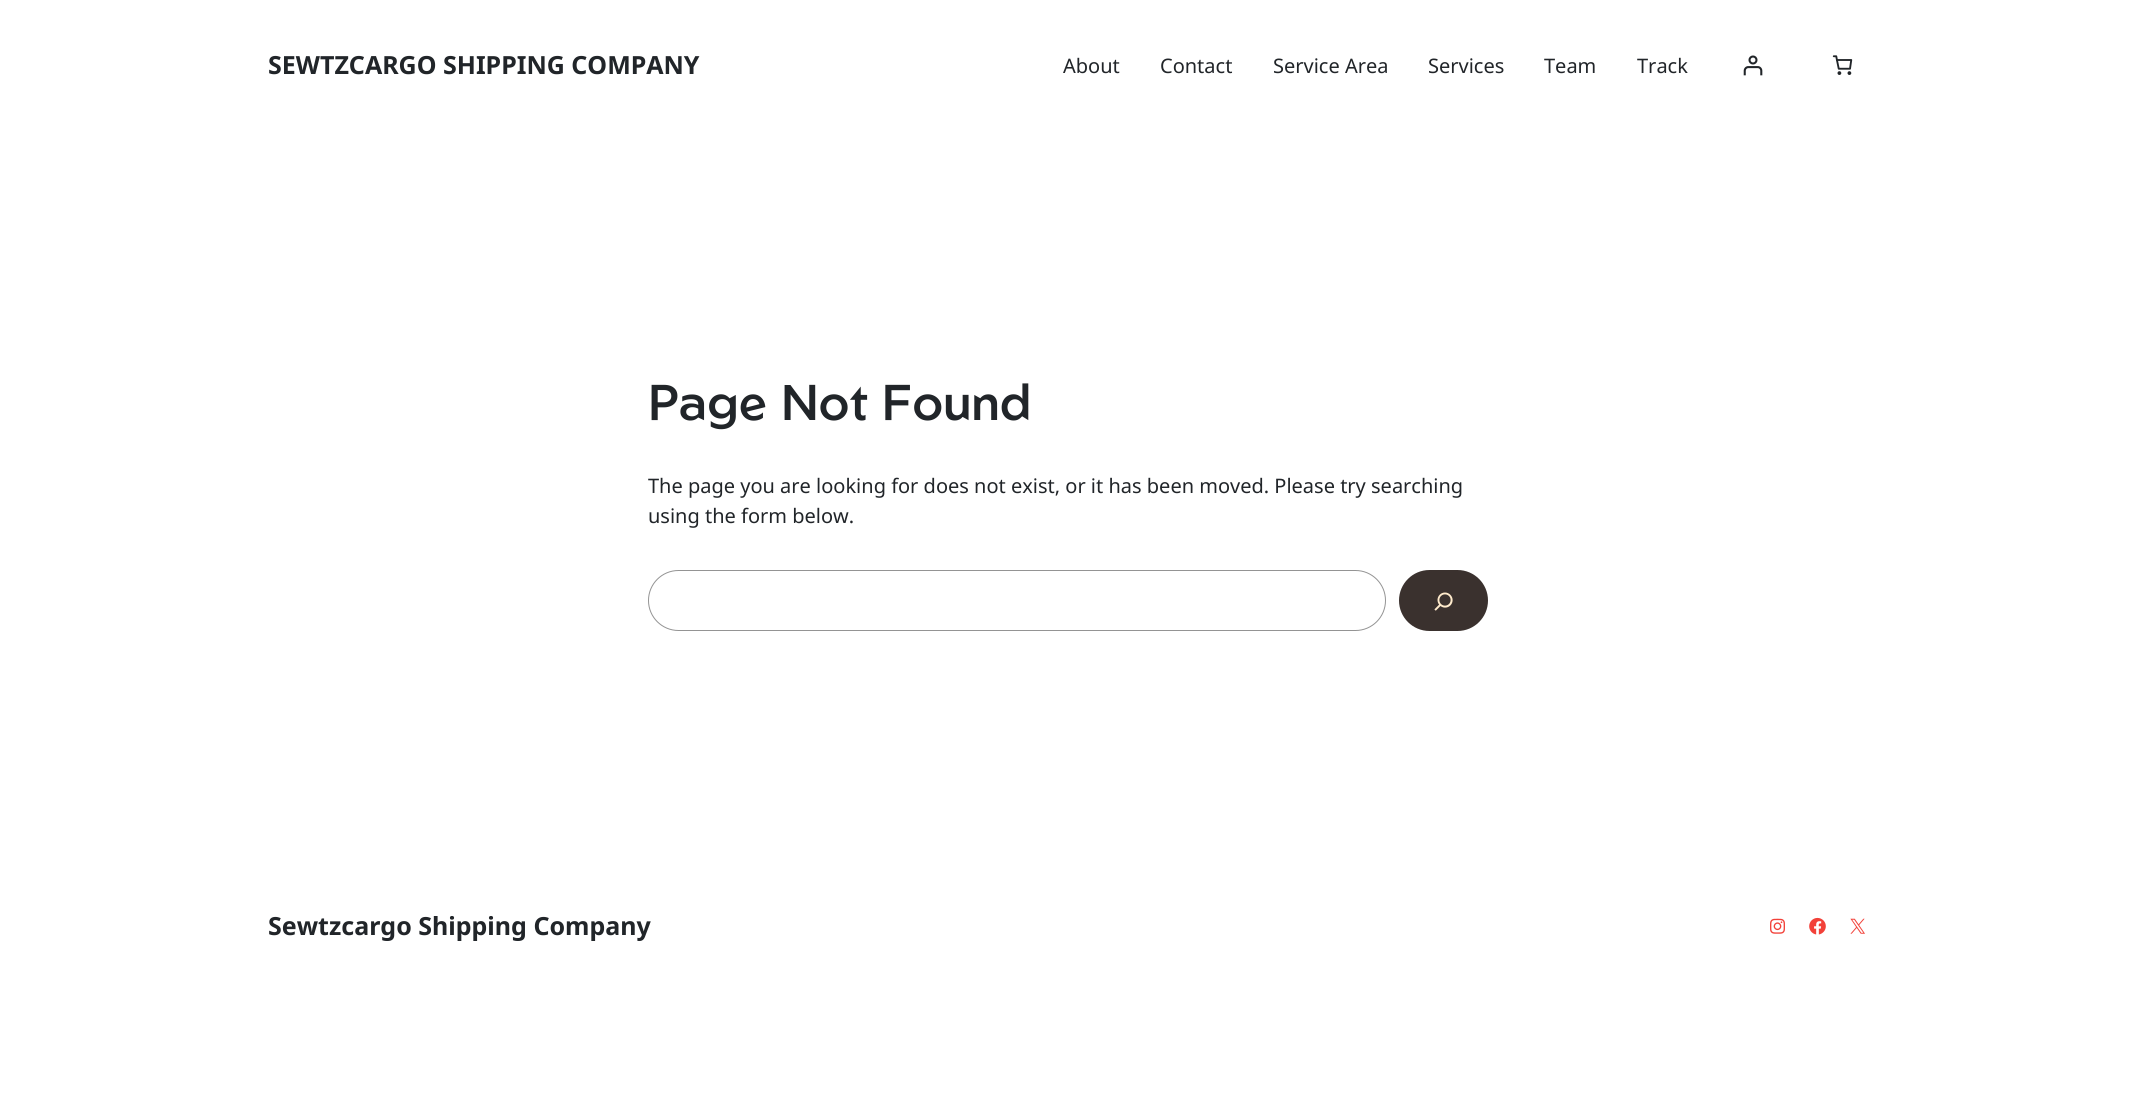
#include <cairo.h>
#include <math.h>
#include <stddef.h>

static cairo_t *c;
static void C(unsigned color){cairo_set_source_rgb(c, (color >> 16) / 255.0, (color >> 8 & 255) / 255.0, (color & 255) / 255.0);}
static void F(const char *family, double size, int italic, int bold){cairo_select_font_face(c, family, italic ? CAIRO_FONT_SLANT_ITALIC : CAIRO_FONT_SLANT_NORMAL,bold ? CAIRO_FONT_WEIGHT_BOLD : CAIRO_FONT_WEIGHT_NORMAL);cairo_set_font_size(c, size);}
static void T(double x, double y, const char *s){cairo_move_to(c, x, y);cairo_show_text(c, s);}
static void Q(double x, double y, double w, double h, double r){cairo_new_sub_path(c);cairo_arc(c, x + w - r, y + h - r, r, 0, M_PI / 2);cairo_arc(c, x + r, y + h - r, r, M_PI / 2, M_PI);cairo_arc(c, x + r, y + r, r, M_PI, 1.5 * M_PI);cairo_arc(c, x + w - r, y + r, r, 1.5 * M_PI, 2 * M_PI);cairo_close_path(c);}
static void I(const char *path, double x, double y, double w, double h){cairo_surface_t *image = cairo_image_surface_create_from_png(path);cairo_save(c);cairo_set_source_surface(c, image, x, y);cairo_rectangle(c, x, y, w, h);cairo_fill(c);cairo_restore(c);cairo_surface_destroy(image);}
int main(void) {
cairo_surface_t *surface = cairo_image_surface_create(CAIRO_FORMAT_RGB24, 2135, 1093);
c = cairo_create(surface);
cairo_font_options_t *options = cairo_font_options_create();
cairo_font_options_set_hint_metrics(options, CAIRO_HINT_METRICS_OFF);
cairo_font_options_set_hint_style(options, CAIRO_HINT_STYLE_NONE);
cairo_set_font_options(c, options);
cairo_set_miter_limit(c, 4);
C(0xffffff);
cairo_paint(c);
F("Noto Sans",25,0,1);
C(0x212529);
T(268,74,"SEWTZCARGO SHIPPING COMPANY");
F("Noto Sans",20,0,0);
T(1063,73,"About");
T(1160,73,"Contact");
T(1273,73,"Service Area");
T(1428,73,"Services");
T(1544,73,"Team");
T(1637,73,"Track");
I("1.png",1743,55,20,21);
I("2.png",1832,55,21,20);
F("Geom Medium",50,0,0);
T(648,420,"Page Not Found");
F("Noto Sans",20,0,0);
T(648,493,"The page you are looking for does not exist, or it has been moved. Please try searching");
T(648,523,"using the form below.");
Q(648.5,570.5,737,60,30);
C(0x949494);
cairo_set_line_width(c,1);
cairo_stroke(c);
C(0x3a312e);
Q(1399,570,89,61,30.5);
cairo_fill(c);
I("3.png",1434,592,19,19);
F("Noto Sans",25,0,1);
C(0x212529);
T(268,935,"Sewtzcargo Shipping Company");
I("4.png",1770,918,15,16);
I("5.png",1809,917,17,18);
I("6.png",1850,918,15,16);
cairo_surface_write_to_png(surface, "o.png");
cairo_font_options_destroy(options);
cairo_destroy(c);
cairo_surface_destroy(surface);
return 0;
}
